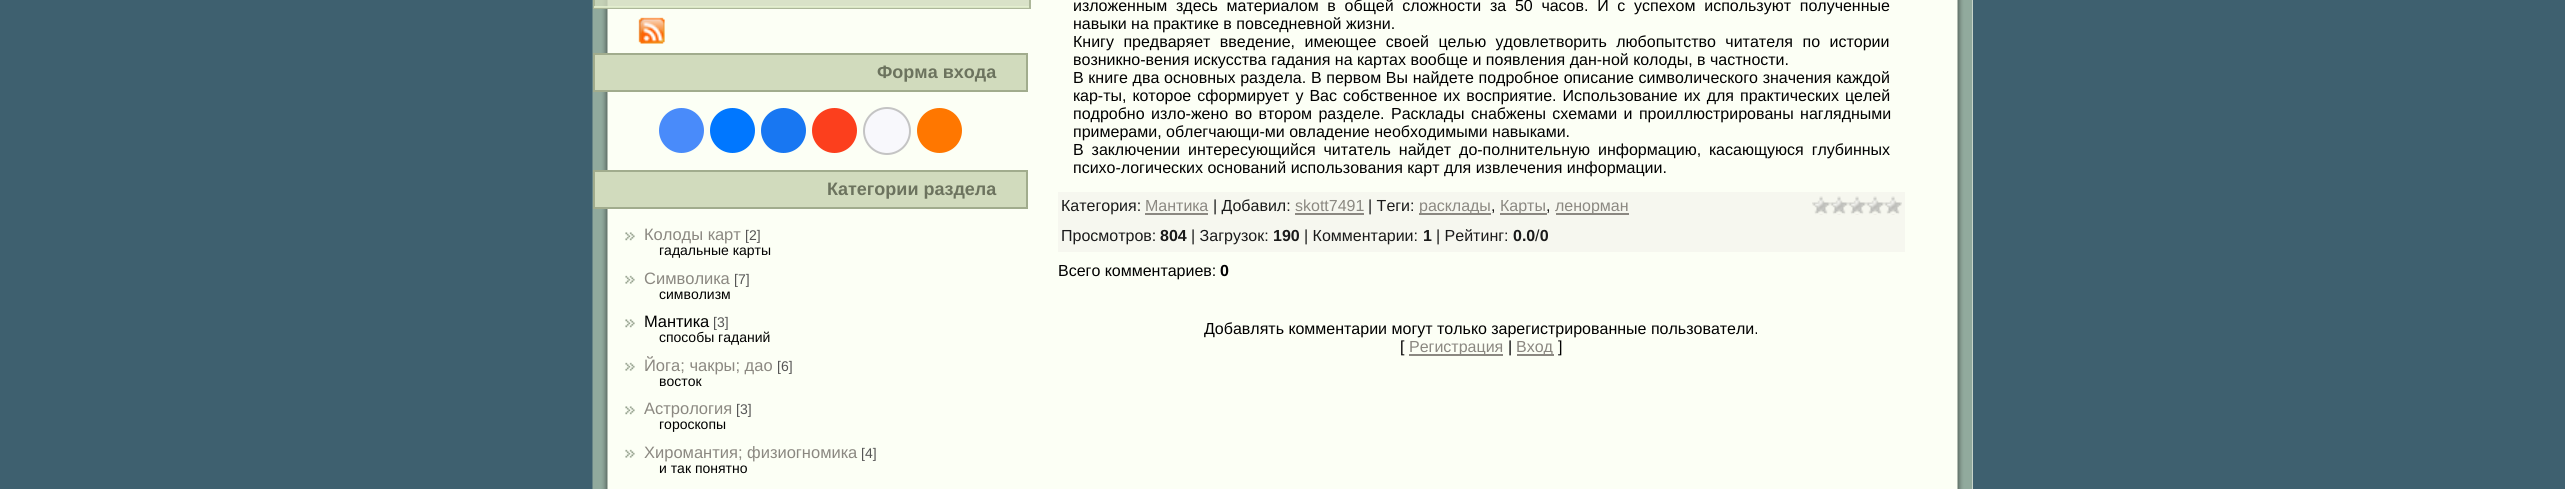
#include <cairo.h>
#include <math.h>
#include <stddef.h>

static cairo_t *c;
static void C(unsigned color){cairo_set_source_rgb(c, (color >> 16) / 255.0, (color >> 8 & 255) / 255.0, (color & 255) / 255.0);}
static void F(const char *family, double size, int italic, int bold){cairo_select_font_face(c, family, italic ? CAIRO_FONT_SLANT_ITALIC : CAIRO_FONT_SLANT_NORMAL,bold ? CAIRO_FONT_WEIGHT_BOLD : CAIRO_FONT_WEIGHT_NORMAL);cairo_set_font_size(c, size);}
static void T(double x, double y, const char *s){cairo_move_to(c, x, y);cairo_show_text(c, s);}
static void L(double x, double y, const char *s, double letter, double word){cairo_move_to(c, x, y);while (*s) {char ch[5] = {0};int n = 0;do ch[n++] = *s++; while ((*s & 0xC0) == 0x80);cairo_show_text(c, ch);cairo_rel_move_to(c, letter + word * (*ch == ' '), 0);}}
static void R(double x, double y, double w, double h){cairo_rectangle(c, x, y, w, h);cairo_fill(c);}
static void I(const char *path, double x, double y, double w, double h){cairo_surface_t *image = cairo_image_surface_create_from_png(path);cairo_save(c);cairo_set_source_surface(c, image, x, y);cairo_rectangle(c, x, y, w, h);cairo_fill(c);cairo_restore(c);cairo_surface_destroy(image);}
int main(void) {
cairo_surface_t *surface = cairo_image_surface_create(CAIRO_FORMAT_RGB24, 2565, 489);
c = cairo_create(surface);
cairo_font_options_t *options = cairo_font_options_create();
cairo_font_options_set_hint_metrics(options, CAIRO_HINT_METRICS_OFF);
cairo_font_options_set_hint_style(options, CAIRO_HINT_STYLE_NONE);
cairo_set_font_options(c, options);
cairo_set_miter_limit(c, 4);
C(0x3e606f);
cairo_paint(c);
C(0xfcfff5);
R(1972,0,1,489);
I("1.png",592,0,1381,489);
cairo_set_source_rgba(c,0.82,0.859,0.741,0.8);
R(593,0,438,9);
cairo_rectangle(c,594,-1,436,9);
cairo_set_source_rgba(c,0.631,0.675,0.553,0.8);
cairo_stroke(c);
cairo_set_source_rgba(c,0.902,0.945,0.816,0.8);
R(594,6,435,2);
I("2.png",638,17,27,27);
C(0xd1dbbd);
cairo_rectangle(c,594,54,433,37);
cairo_fill_preserve(c);
C(0xa1ac8d);
cairo_stroke(c);
F("Liberation Sans",18,0,1);
C(0x6c735e);
T(877,78,"Форма входа");
C(0x498bfa);
cairo_new_path(c);
cairo_arc(c,681.5,130.5,22.5,0,2 * M_PI);
cairo_fill(c);
C(0x0077ff);
cairo_arc(c,732.5,130.5,22.5,0,2 * M_PI);
cairo_fill(c);
C(0x1877f2);
cairo_arc(c,783.5,130.5,22.5,0,2 * M_PI);
cairo_fill(c);
C(0xfc3f1d);
cairo_arc(c,834.5,130.5,22.5,0,2 * M_PI);
cairo_fill(c);
C(0xf8f8fc);
cairo_arc(c,887,131,23,0,2 * M_PI);
cairo_fill_preserve(c);
C(0xc4c4c4);
cairo_stroke(c);
C(0xff7700);
cairo_arc(c,939.5,130.5,22.5,0,2 * M_PI);
cairo_fill(c);
C(0xd1dbbd);
cairo_rectangle(c,594,171,433,37);
cairo_fill_preserve(c);
C(0xa1ac8d);
cairo_stroke(c);
C(0x6c735e);
T(827,195,"Категории раздела");
I("3.png",625,232,10,9);
F("Liberation Sans",16.5,0,0);
C(0x8b8881);
T(644,240,"Колоды карт");
F("Liberation Sans",14,0,0);
C(0x555555);
T(745,240,"[2]");
C(0x000000);
T(659,255,"гадальные карты");
I("4.png",625,275,10,9);
F("Liberation Sans",16.5,0,0);
C(0x8b8881);
T(644,284,"Символика");
F("Liberation Sans",14,0,0);
C(0x555555);
T(734,284,"[7]");
C(0x000000);
T(659,299,"символизм");
I("3.png",625,319,10,9);
F("Liberation Sans",16.5,0,0);
T(644,327,"Мантика");
F("Liberation Sans",14,0,0);
C(0x555555);
T(713,327,"[3]");
C(0x000000);
T(659,342,"способы гаданий");
I("4.png",625,362,10,9);
F("Liberation Sans",16.5,0,0);
C(0x8b8881);
T(644,371,"Йога; чакры; дао");
F("Liberation Sans",14,0,0);
C(0x555555);
T(777,371,"[6]");
C(0x000000);
T(659,386,"восток");
I("3.png",625,406,10,9);
F("Liberation Sans",16.5,0,0);
C(0x8b8881);
T(644,414,"Астрология");
F("Liberation Sans",14,0,0);
C(0x555555);
T(736,414,"[3]");
C(0x000000);
T(659,429,"гороскопы");
I("4.png",625,449,10,9);
F("Liberation Sans",16.5,0,0);
C(0x8b8881);
T(644,458,"Хиромантия; физиогномика");
F("Liberation Sans",14,0,0);
C(0x555555);
T(861,458,"[4]");
C(0x000000);
T(659,473,"и так понятно");
F("Liberation Sans",16,0,0);
L(1073,11,"изложенным здесь материалом в общей сложности за 50 часов. И с успехом используют полученные",0,4.25);
T(1073,29,"навыки на практике в повседневной жизни.");
L(1073,47,"Книгу предваряет введение, имеющее своей целью удовлетворить любопытство читателя по истории",0,5);
T(1073,65,"возникно-вения искусства гадания на картах вообще и появления дан-ной колоды, в частности.");
L(1073,83,"В книге два основных раздела. В первом Вы найдете подробное описание символического значения каждой",0,.25);
L(1073,101,"кар-ты, которое сформирует у Вас собственное их восприятие. Использование их для практических целей",0,1.6);
L(1073,119,"подробно изло-жено во втором разделе. Расклады снабжены схемами и проиллюстрированы наглядными",0,2);
T(1073,137,"примерами, облегчающи-ми овладение необходимыми навыками.");
L(1073,155,"В заключении интересующийся читатель найдет до-полнительную информацию, касающуюся глубинных",0,3.5);
T(1073,173,"психо-логических оснований использования карт для извлечения информации.");
C(0xf6f7ef);
R(1058,192,847,60);
C(0x1a1a1a);
T(1061,211,"Категория:");
C(0x8b8881);
T(1145,211,"Мантика");
R(1145,213,63,2);
C(0x1a1a1a);
T(1213,211,"| Добавил:");
C(0x8b8881);
T(1295,211,"skott7491");
R(1295,213,69,2);
C(0x1a1a1a);
T(1368,211,"| Теги:");
C(0x8b8881);
R(1419,213,72,2);
T(1419,211,"расклады");
C(0x1a1a1a);
T(1491,211,",");
C(0x8b8881);
R(1500,213,47,2);
T(1500,211,"Карты");
C(0x1a1a1a);
T(1546,211,",");
C(0x8b8881);
R(1556,213,73,2);
T(1555,211,"ленорман");
I("5.png",1812,196,90,19);
F("Liberation Sans",16,0,1);
C(0x1a1a1a);
T(1160,241,"804");
F("Liberation Sans",16,0,0);
T(1191,241,"| Загрузок:");
F("Liberation Sans",16,0,1);
T(1273,241,"190");
F("Liberation Sans",16,0,0);
T(1304,241,"| Комментарии:");
T(1436,241,"| Рейтинг:");
F("Liberation Sans",16,0,1);
T(1513,241,"0.0 0");
F("Liberation Sans",16,0,0);
T(1061,241,"Просмотров:");
F("Liberation Sans",16,0,1);
T(1423,241,"1");
F("Liberation Sans",16,0,0);
T(1535,241,"/");
C(0x000000);
T(1058,276,"Всего комментариев:");
F("Liberation Sans",16,0,1);
T(1220,276,"0");
F("Liberation Sans",16,0,0);
T(1204,334,"Добавлять комментарии могут только зарегистрированные пользователи.");
T(1400,352,"[");
C(0x8b8881);
R(1409,354,94,2);
T(1409,352,"Регистрация");
C(0x000000);
T(1508,352,"|");
C(0x8b8881);
R(1517,354,37,2);
T(1516,352,"Вход");
C(0x000000);
T(1558,352,"]");
cairo_surface_write_to_png(surface, "o.png");
cairo_font_options_destroy(options);
cairo_destroy(c);
cairo_surface_destroy(surface);
return 0;
}
